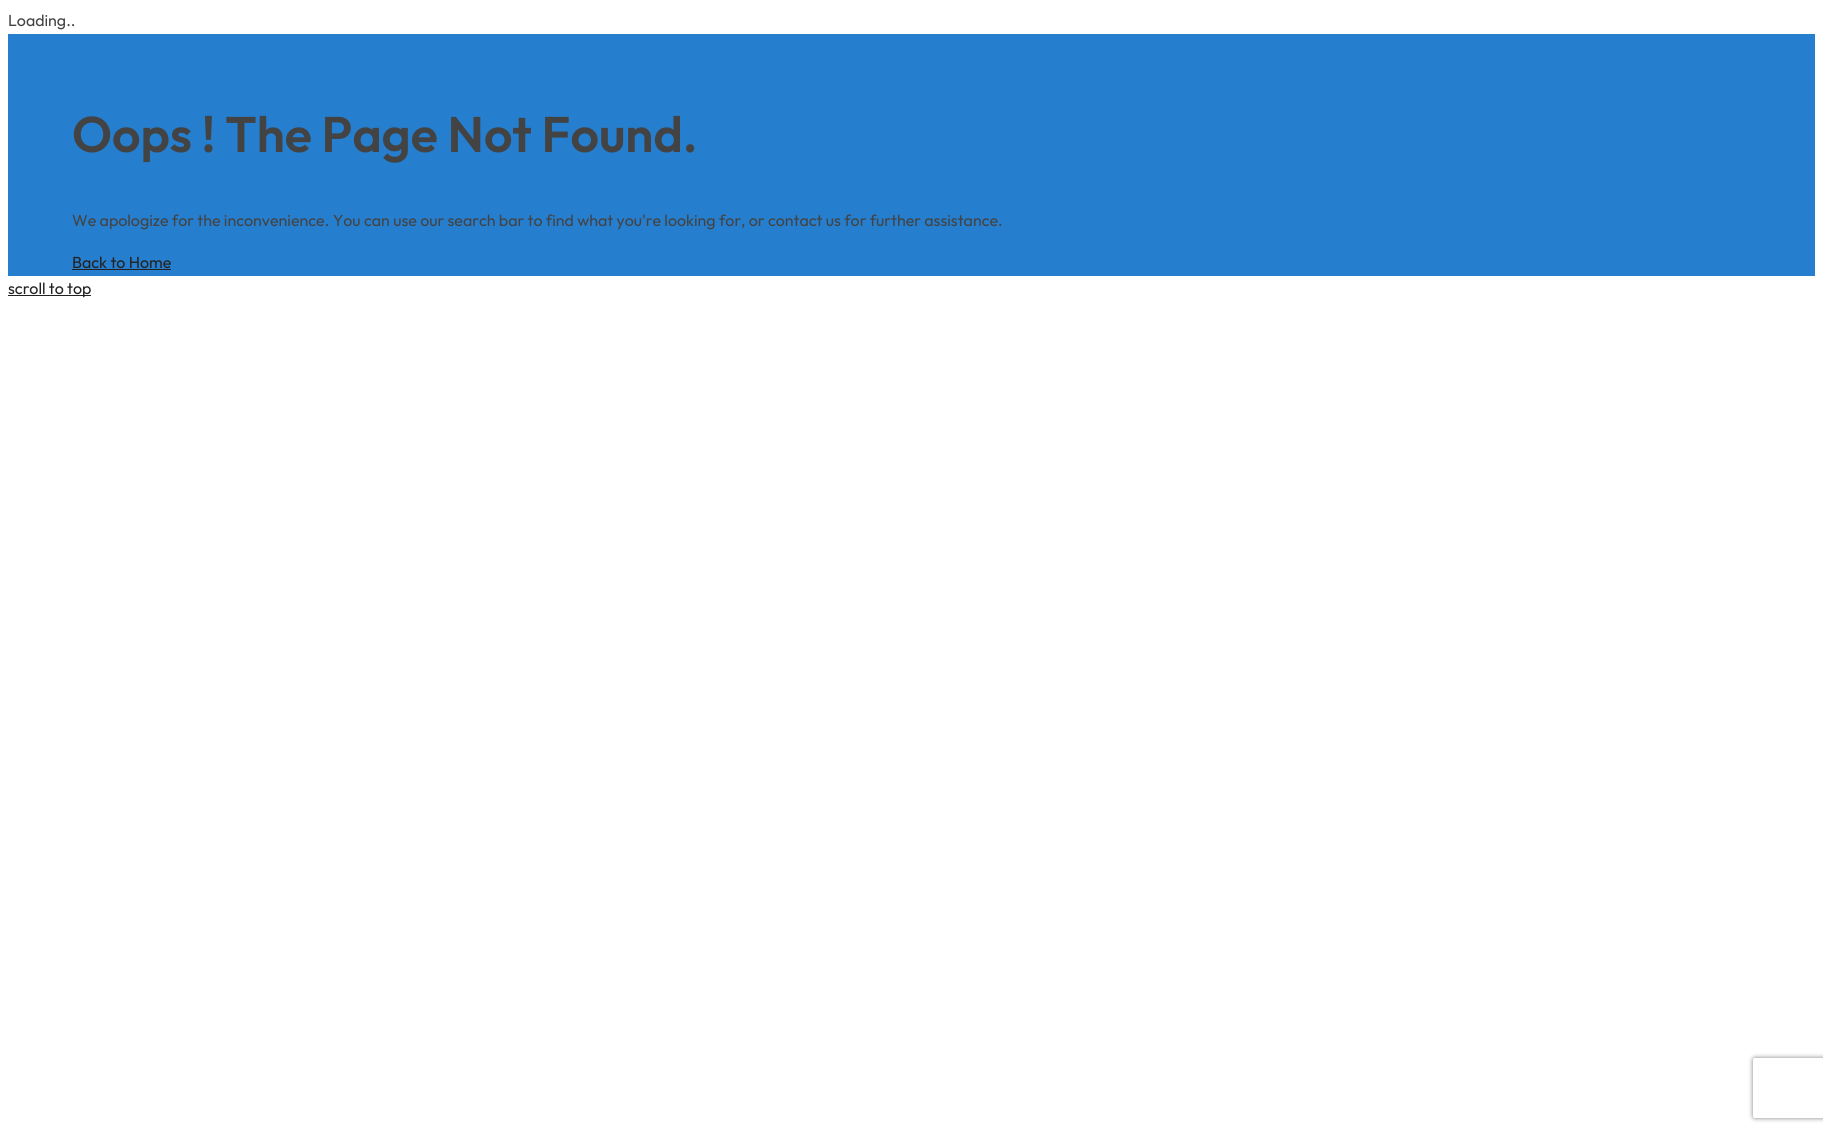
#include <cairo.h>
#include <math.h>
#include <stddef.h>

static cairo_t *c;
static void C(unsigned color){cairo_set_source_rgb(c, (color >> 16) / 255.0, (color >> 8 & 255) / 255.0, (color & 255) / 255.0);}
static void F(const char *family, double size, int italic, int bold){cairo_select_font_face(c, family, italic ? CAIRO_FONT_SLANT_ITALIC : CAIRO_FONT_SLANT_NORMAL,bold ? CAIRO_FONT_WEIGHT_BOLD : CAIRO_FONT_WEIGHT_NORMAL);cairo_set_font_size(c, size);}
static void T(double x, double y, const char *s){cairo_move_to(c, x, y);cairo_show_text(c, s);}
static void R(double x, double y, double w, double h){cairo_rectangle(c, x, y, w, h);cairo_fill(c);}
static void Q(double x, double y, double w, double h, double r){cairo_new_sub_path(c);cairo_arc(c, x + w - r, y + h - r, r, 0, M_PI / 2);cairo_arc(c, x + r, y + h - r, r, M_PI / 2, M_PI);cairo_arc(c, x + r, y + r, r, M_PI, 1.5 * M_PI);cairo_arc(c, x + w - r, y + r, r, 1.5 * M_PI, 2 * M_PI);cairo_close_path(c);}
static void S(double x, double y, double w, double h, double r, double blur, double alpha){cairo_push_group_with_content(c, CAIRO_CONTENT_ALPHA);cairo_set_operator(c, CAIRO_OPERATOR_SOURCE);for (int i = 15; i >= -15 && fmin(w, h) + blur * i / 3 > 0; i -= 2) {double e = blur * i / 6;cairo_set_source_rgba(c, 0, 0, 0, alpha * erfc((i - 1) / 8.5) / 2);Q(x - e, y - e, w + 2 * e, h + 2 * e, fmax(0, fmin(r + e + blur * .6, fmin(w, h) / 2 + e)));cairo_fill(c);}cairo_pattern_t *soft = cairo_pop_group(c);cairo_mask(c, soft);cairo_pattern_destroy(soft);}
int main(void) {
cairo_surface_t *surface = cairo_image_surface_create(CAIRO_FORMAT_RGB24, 1823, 1132);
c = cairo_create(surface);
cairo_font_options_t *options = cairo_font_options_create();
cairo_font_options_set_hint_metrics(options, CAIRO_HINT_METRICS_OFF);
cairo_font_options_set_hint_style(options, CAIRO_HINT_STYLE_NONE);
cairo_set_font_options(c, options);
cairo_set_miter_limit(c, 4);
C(0xffffff);
cairo_paint(c);
F("Outfit",16,0,0);
C(0x434343);
T(8,26,"Loading..");
C(0x267ece);
R(8,34,1807,242);
F("Outfit SemiBold",50,0,0);
C(0x434343);
T(72,152,"Oops ! The Page Not Found.");
F("Outfit",16,0,0);
T(72,226,"We apologize for the inconvenience. You can use our search bar to find what you're looking for, or contact us for further assistance.");
C(0x222222);
T(72,268,"Back to Home");
R(72,269,99,1);
R(8,295,83,1);
T(8,294,"scroll to top");
cairo_save(c);
cairo_set_fill_rule(c,CAIRO_FILL_RULE_EVEN_ODD);
cairo_new_path(c);
cairo_move_to(c,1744,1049);
cairo_line_to(c,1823,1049);
cairo_line_to(c,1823,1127);
cairo_line_to(c,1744,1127);
cairo_close_path(c);
cairo_move_to(c,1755,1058);
cairo_line_to(c,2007,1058);
cairo_curve_to(c,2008,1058,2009,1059,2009,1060);
cairo_line_to(c,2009,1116);
cairo_curve_to(c,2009,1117,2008,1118,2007,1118);
cairo_line_to(c,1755,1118);
cairo_curve_to(c,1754,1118,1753,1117,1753,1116);
cairo_line_to(c,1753,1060);
cairo_curve_to(c,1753,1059,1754,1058,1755,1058);
cairo_close_path(c);
cairo_clip(c);
C(0x808080);
S(1753,1058,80,60,2,2.5,1);
cairo_restore(c);
cairo_surface_write_to_png(surface, "o.png");
cairo_font_options_destroy(options);
cairo_destroy(c);
cairo_surface_destroy(surface);
return 0;
}
